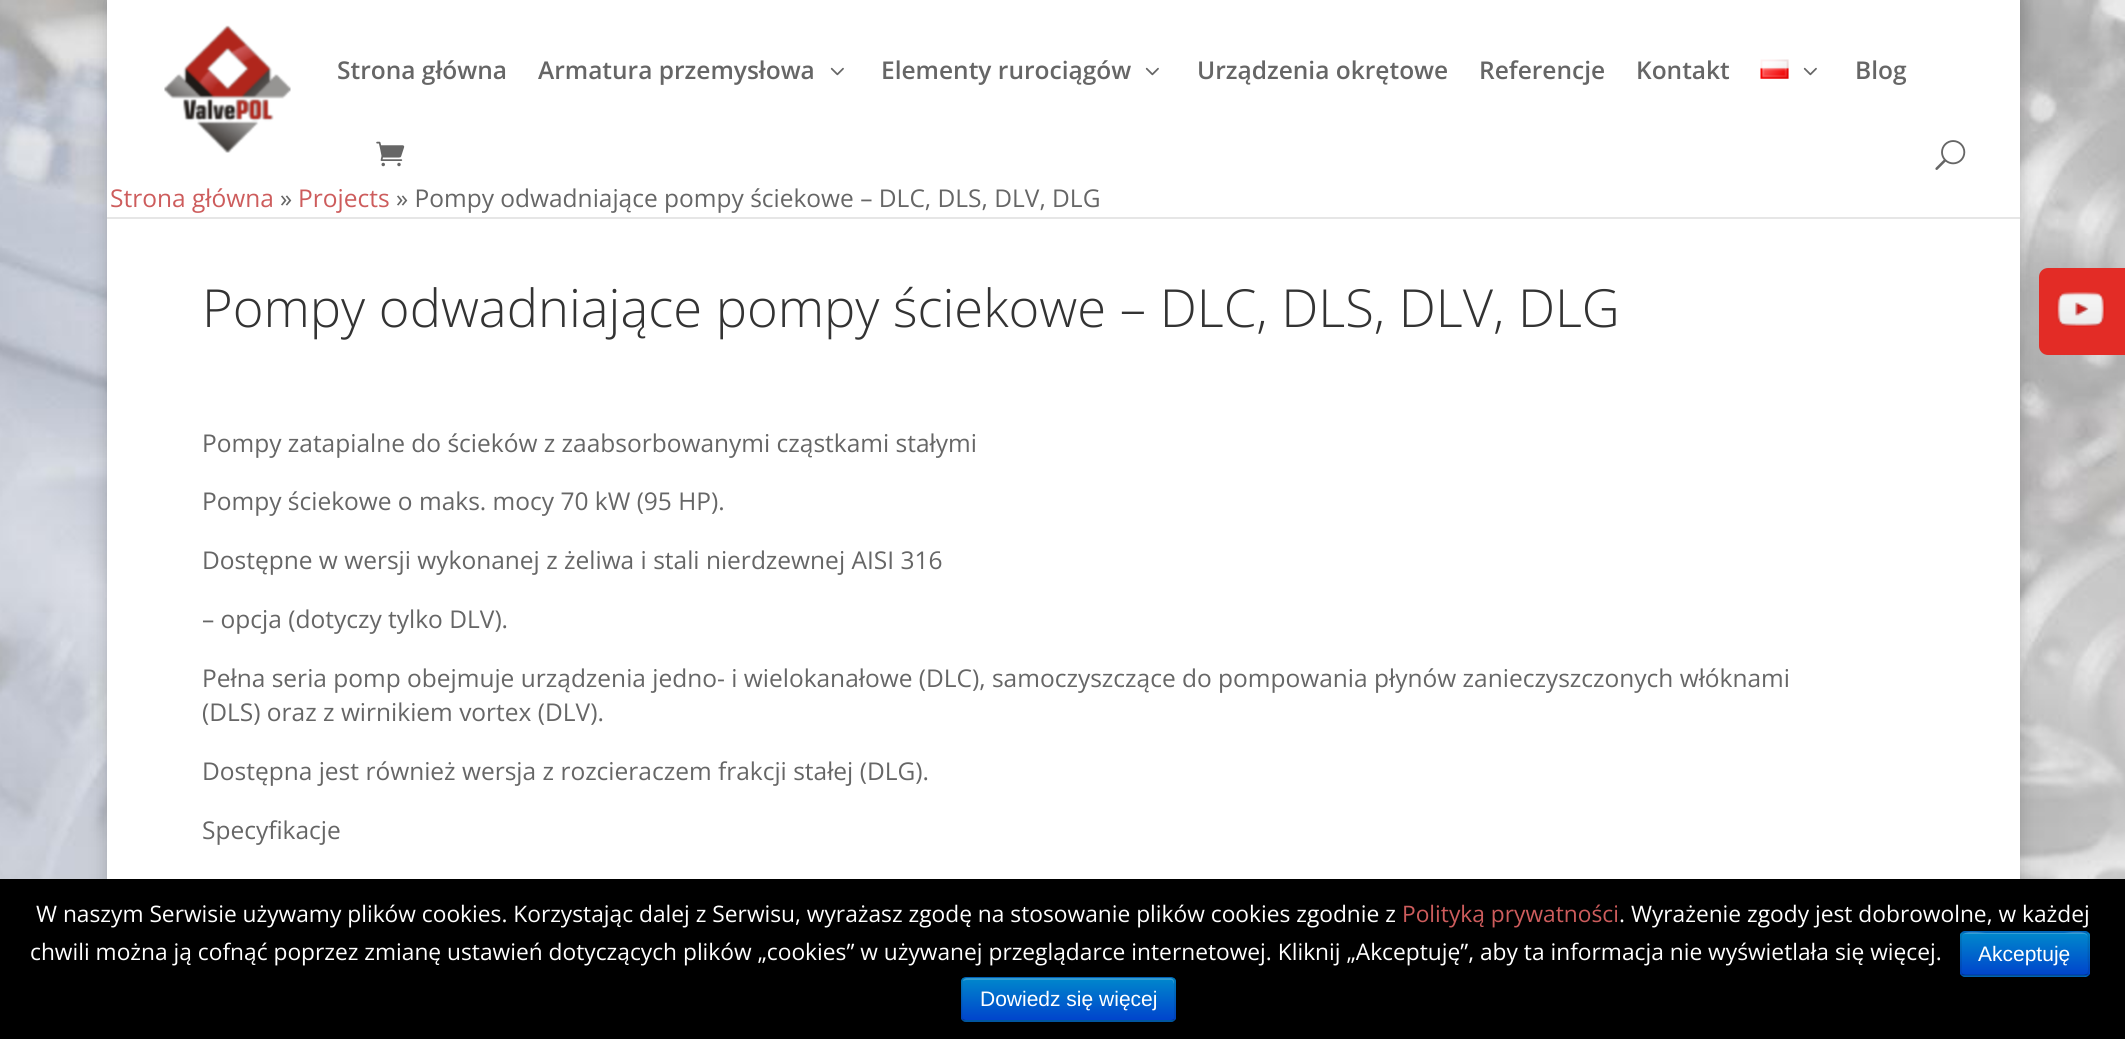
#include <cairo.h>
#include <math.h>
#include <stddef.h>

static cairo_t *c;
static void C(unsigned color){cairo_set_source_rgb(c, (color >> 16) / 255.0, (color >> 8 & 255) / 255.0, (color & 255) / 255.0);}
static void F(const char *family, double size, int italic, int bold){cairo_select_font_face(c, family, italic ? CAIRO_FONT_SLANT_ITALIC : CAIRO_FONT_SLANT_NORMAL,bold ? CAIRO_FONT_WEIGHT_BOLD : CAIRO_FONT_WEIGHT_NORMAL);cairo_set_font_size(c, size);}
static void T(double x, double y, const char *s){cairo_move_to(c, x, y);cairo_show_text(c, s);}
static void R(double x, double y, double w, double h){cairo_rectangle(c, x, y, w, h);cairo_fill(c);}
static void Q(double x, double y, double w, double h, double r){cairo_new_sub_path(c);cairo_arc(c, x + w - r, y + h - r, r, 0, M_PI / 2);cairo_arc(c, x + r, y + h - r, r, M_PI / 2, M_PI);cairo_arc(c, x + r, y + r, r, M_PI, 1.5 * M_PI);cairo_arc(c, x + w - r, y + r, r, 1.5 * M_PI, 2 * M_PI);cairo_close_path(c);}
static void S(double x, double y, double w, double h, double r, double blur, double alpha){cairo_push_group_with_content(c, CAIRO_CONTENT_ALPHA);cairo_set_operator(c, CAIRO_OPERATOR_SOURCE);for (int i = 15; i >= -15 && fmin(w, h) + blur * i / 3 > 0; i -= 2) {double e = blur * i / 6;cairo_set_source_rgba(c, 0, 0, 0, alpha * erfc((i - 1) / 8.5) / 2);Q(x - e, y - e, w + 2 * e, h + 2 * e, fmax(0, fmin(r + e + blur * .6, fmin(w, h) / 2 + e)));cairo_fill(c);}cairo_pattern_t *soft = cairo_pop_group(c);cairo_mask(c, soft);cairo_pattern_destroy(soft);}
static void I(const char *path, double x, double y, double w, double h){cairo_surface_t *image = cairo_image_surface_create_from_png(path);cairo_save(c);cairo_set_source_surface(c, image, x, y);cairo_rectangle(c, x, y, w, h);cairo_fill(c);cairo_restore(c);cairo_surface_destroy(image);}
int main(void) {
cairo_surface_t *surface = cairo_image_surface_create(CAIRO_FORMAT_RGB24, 2125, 1039);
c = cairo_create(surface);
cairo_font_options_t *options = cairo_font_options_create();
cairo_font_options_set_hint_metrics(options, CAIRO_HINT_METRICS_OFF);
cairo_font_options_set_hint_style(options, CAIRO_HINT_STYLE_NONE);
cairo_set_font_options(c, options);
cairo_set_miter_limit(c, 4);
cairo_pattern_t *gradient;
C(0xffffff);
cairo_paint(c);
I("1.png",0,0,2125,879);
C(0x000000);
S(107,0,1913,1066,0,9,.2);
C(0xe6e6e6);
cairo_new_path(c);
cairo_move_to(c,107,217);
cairo_line_to(c,107,219);
cairo_line_to(c,2020,219);
cairo_line_to(c,2020,2);
cairo_line_to(c,2020,217);
cairo_close_path(c);
cairo_fill(c);
C(0xffffff);
R(107,0,1913,217);
I("2.png",164,25,127,128);
F("Open Sans SemiBold",24.5,0,0);
C(0x666666);
T(337,79,"Strona główna");
T(538,79,"Armatura przemysłowa");
I("3.png",830,67,14,9);
T(881,79,"Elementy rurociągów");
I("3.png",1145,67,14,9);
T(1197,79,"Urządzenia okrętowe");
T(1479,79,"Referencje");
T(1636,79,"Kontakt");
I("4.png",1760,59,29,20);
I("3.png",1803,67,14,9);
T(1855,79,"Blog");
I("5.png",376,141,29,26);
I("6.png",1935,140,31,30);
F("Open Sans",24.5,0,0);
C(0xcd5c5c);
T(110,207,"Strona główna");
C(0x666666);
T(280,207,"»");
C(0xcd5c5c);
T(298,207,"Projects");
C(0x666666);
T(396,207,"» Pompy odwadniające pompy ściekowe – DLC, DLS, DLV, DLG");
C(0xffffff);
R(107,219,1913,660);
F("Open Sans Light",52.5,0,0);
C(0x333333);
T(202,327,"Pompy odwadniające pompy ściekowe – DLC, DLS, DLV, DLG");
F("Open Sans",24.5,0,0);
C(0x666666);
T(202,452,"Pompy zatapialne do ścieków z zaabsorbowanymi cząstkami stałymi");
T(202,510,"Pompy ściekowe o maks. mocy 70 kW (95 HP).");
T(202,569,"Dostępne w wersji wykonanej z żeliwa i stali nierdzewnej AISI 316");
T(202,628,"– opcja (dotyczy tylko DLV).");
T(202,687,"Pełna seria pomp obejmuje urządzenia jedno- i wielokanałowe (DLC), samoczyszczące do pompowania płynów zanieczyszczonych włóknami");
T(202,721,"(DLS) oraz z wirnikiem vortex (DLV).");
T(202,780,"Dostępna jest również wersja z rozcieraczem frakcji stałej (DLG).");
T(202,839,"Specyfikacje");
C(0xe32c26);
Q(2039,268,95,87,9);
cairo_fill(c);
I("7.png",2056,292,50,35);
C(0x000000);
R(0,879,2125,160);
F("Open Sans",22.75,0,0);
C(0xffffff);
T(36,922,"W naszym Serwisie używamy plików cookies. Korzystając dalej z Serwisu, wyrażasz zgodę na stosowanie plików cookies zgodnie z");
C(0xcd5c5c);
T(1402,922,"Polityką prywatności");
C(0xffffff);
T(1619,922,". Wyrażenie zgody jest dobrowolne, w każdej");
T(30,960,"chwili można ją cofnąć poprzez zmianę ustawień dotyczących plików „cookies” w używanej przeglądarce internetowej. Kliknij „Akceptuję”, aby ta informacja nie wyświetlała się więcej.");
C(0x006dcc);
Q(1960,931,130,46,5);
cairo_fill(c);
cairo_save(c);
Q(1960,931,130,46,5);
cairo_clip(c);
gradient = cairo_pattern_create_linear(2025,933,2025,975);
cairo_pattern_add_color_stop_rgba(gradient,0,0,0.533,0.8,1);
cairo_pattern_add_color_stop_rgba(gradient,1,0,0.267,0.8,1);
cairo_set_source(c,gradient);
cairo_pattern_destroy(gradient);
R(1960,933,130,42);
cairo_restore(c);
cairo_set_source_rgba(c,1,1,1,0.2);
cairo_new_path(c);
cairo_move_to(c,1965,934);
cairo_line_to(c,2084,934);
cairo_curve_to(c,2086,934,2088,936,2088,938);
cairo_curve_to(c,2088,928,2067,933,2064,933);
cairo_line_to(c,1986,933);
cairo_curve_to(c,1983,933,1962,928,1962,938);
cairo_curve_to(c,1962,936,1963,934,1965,934);
cairo_close_path(c);
cairo_fill(c);
cairo_new_path(c);
cairo_move_to(c,2087.5,974.5);
cairo_line_to(c,2084,975.5);
cairo_line_to(c,1965,975.5);
cairo_line_to(c,1962,974.5);
cairo_set_source_rgba(c,0,0,0,0.25);
cairo_set_line_width(c,1.8);
cairo_stroke(c);
cairo_new_path(c);
cairo_move_to(c,1962,974.5);
cairo_curve_to(c,1960,972,1961,968,1961,965.5);
cairo_line_to(c,1961,954);
cairo_curve_to(c,1961,927.5,1957,932,1985,932);
cairo_line_to(c,2084,932);
cairo_curve_to(c,2089.5,932,2088.5,938.5,2088.5,942);
cairo_line_to(c,2088.5,959.5);
cairo_curve_to(c,2088.5,962.5,2090,971.5,2087.5,974.5);
cairo_set_source_rgba(c,0,0,0,0.1);
cairo_stroke(c);
F("Liberation Sans",21,0,0);
C(0xffffff);
T(1978,961,"Akceptuję");
C(0x006dcc);
Q(961,977,215,45,5);
cairo_fill(c);
cairo_save(c);
Q(961,977,215,45,5);
cairo_clip(c);
gradient = cairo_pattern_create_linear(1068,978,1068,1020);
cairo_pattern_add_color_stop_rgba(gradient,0,0,0.533,0.8,1);
cairo_pattern_add_color_stop_rgba(gradient,1,0,0.267,0.8,1);
cairo_set_source(c,gradient);
cairo_pattern_destroy(gradient);
R(961,978,215,42);
cairo_restore(c);
cairo_set_source_rgba(c,1,1,1,0.2);
cairo_new_path(c);
cairo_move_to(c,966,980);
cairo_line_to(c,1172,980);
cairo_line_to(c,1173,981);
cairo_line_to(c,1174,984);
cairo_line_to(c,1174,982);
cairo_curve_to(c,1174,980,1172,978,1170,978);
cairo_line_to(c,967,978);
cairo_curve_to(c,965,978,963,980,963,981);
cairo_close_path(c);
cairo_fill(c);
cairo_new_path(c);
cairo_move_to(c,1174,1020);
cairo_line_to(c,1171,1021);
cairo_line_to(c,965.5,1021);
cairo_line_to(c,963,1020);
cairo_set_source_rgba(c,0,0,0,0.25);
cairo_stroke(c);
cairo_new_path(c);
cairo_move_to(c,963,1020);
cairo_curve_to(c,962,1019,961.5,1018,961.5,1017);
cairo_line_to(c,961.5,982);
cairo_curve_to(c,961.5,980.5,962,979.5,963,978.5);
cairo_curve_to(c,963.5,978,965,977.5,966,977.5);
cairo_line_to(c,1171,977.5);
cairo_curve_to(c,1172,977.5,1173,978,1174,978.5);
cairo_curve_to(c,1174.5,979.5,1175,980.5,1175,982);
cairo_line_to(c,1175,1017);
cairo_curve_to(c,1175,1018,1174.5,1019,1174,1020);
cairo_set_source_rgba(c,0,0,0,0.1);
cairo_stroke(c);
C(0xffffff);
T(980,1006,"Dowiedz się więcej");
cairo_surface_write_to_png(surface, "o.png");
cairo_font_options_destroy(options);
cairo_destroy(c);
cairo_surface_destroy(surface);
return 0;
}
